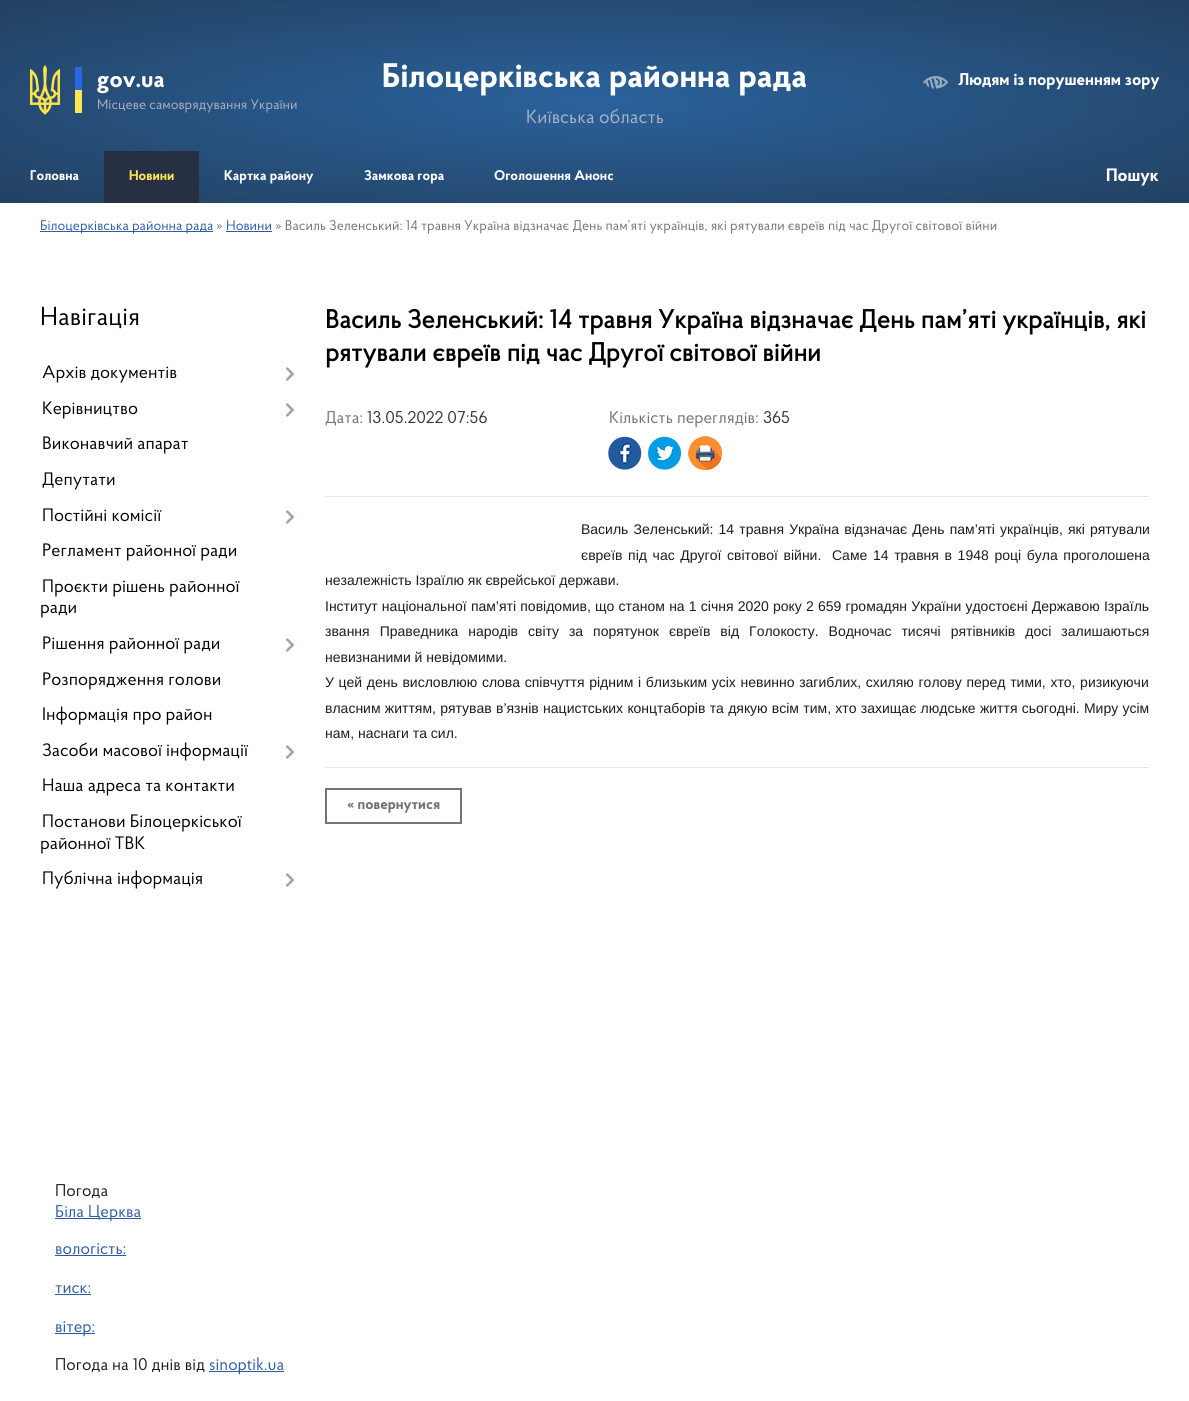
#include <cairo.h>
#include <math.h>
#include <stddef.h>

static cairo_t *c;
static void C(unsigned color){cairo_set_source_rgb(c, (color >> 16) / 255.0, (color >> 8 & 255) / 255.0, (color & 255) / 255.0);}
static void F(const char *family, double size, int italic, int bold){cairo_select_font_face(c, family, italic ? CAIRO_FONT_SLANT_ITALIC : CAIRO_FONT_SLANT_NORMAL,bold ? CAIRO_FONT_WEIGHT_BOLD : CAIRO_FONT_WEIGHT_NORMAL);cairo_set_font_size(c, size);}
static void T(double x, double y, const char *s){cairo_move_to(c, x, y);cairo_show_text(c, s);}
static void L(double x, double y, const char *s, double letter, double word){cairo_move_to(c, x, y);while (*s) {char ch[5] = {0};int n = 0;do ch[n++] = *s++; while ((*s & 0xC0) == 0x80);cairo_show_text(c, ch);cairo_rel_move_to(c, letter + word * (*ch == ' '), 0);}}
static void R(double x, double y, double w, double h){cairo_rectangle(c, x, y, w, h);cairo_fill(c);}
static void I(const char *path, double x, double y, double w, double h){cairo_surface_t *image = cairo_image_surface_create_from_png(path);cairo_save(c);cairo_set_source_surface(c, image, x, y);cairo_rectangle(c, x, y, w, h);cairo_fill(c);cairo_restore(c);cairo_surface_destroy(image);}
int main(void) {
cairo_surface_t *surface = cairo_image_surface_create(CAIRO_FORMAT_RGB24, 1189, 1401);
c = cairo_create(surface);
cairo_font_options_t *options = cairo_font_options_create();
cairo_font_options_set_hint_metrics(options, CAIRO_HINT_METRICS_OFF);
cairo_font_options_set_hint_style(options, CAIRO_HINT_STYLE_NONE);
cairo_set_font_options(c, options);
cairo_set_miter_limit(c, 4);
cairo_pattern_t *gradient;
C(0xffffff);
cairo_paint(c);
gradient = cairo_pattern_create_radial(0,0,0,0,0,1);
cairo_pattern_set_matrix(gradient, &(cairo_matrix_t){1.0 / 841, 0, 0, 1.0 / 144, -1.0 * 595 / 841, -1.0 * 102 / 144});
cairo_pattern_add_color_stop_rgba(gradient,0,0.165,0.384,0.612,1);
cairo_pattern_add_color_stop_rgba(gradient,1,0.137,0.255,0.38,1);
cairo_set_source(c,gradient);
cairo_pattern_destroy(gradient);
R(0,0,1189,203);
I("1.png",30,65,30,50);
C(0x2669e3);
R(75,67,7,23);
C(0xffe358);
R(75,90,7,23);
F("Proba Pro",24,0,1);
C(0xffffff);
T(97,87,"gov.ua");
F("Proba Pro",14,0,0);
C(0xaab3c6);
T(97,109,"Місцеве самоврядування України");
F("Proba Pro",34,0,1);
C(0xffffff);
T(382,87,"Білоцерківська районна рада");
F("Proba Pro",19,0,0);
C(0xaab3c6);
T(526,123,"Київська область");
I("2.png",923,76,25,13);
F("Proba Pro",17,0,1);
C(0xffffff);
T(958,85,"Людям із порушенням зору");
F("Proba Pro",14,0,1);
T(30,180,"Головна");
C(0x273043);
R(104,151,95,52);
C(0xffe358);
T(129,180,"Новини");
C(0xffffff);
T(224,180,"Картка району");
T(364,180,"Замкова гора");
T(494,180,"Оголошення Анонс");
F("Proba Pro",18,0,1);
T(1106,181,"Пошук");
C(0x2d5ca6);
R(40,231,173,1);
F("Proba Pro",14,0,0);
T(40,230,"Білоцерківська районна рада");
C(0x6d7381);
T(216,230,"»");
C(0x2d5ca6);
T(226,230,"Новини");
R(226,231,46,1);
C(0x6d7381);
T(275,230,"» Василь Зеленський: 14 травня Україна відзначає День пам’яті українців, які рятували євреїв під час Другої світової війни");
F("Proba Pro",26,0,0);
C(0x000000);
T(40,325,"Навігація");
F("Proba Pro",18,0,0);
T(42,378,"Архів документів");
I("3.png",285,367,9,14);
T(42,414,"Керівництво");
I("3.png",285,403,9,14);
T(42,449,"Виконавчий апарат");
T(42,485,"Депутати");
T(42,521,"Постійні комісії");
I("3.png",285,510,9,14);
T(42,556,"Регламент районної ради");
T(42,592,"Проєкти рішень районної");
T(40,613,"ради");
T(42,649,"Рішення районної ради");
I("3.png",285,638,9,14);
T(42,685,"Розпорядження голови");
T(42,720,"Інформація про район");
T(42,756,"Засоби масової інформації");
I("3.png",285,745,9,14);
T(42,791,"Наша адреса та контакти");
T(42,827,"Постанови Білоцеркіської");
T(40,849,"районної ТВК");
T(42,884,"Публічна інформація");
I("3.png",285,873,9,14);
F("Proba Pro",17,0,0);
C(0x1d1d1b);
T(55,1196,"Погода");
C(0x2d5ca6);
R(55,1218,86,1);
T(55,1217,"Біла Церква");
T(55,1254,"вологість:");
R(55,1255,71,1);
T(55,1293,"тиск:");
R(55,1294,36,1);
R(55,1333,40,1);
T(55,1332,"вітер:");
C(0x1d1d1b);
T(55,1370,"Погода на 10 днів від");
C(0x2d5ca6);
R(209,1371,75,1);
T(209,1370,"sinoptik.ua");
F("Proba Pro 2",26,0,1);
C(0x000000);
T(325,328,"Василь Зеленський: 14 травня Україна відзначає День пам’яті українців, які");
T(325,361,"рятували євреїв під час Другої світової війни");
F("Proba Pro",17,0,0);
C(0x727272);
T(325,423,"Дата:");
C(0x333333);
T(367,423,"13.05.2022 07:56");
C(0x727272);
T(609,423,"Кількість переглядів:");
C(0x333333);
T(763,423,"365");
I("4.png",608,436,34,34);
I("5.png",648,436,33,34);
I("6.png",688,436,34,34);
C(0xe5e5e5);
R(325,496,824,1);
F("Liberation Sans",14,0,0);
C(0x1d1d1b);
L(581,534,"Василь Зеленський: 14 травня Україна відзначає День пам’яті українців, які рятували",0,1.25);
L(581,560,"євреїв під час Другої світової війни.",0,1.75);
L(832,560,"Саме 14 травня в 1948 році була проголошена",0,1.75);
T(325,585,"незалежність Ізраїлю як єврейської держави.");
L(325,611,"Інститут національної пам’яті повідомив, що станом на 1 січня 2020 року 2 659 громадян України удостоєні Державою Ізраїль",0,.3);
L(325,636,"звання Праведника народів світу за порятунок євреїв від Голокосту. Водночас тисячі рятівників досі залишаються",0,6.1);
T(325,662,"невизнаними й невідомими.");
L(325,687,"У цей день висловлюю слова співчуття рідним і близьким усіх невинно загиблих, схиляю голову перед тими, хто, ризикуючи",0,.75);
L(325,713,"власним життям, рятував в’язнів нацистських концтаборів та дякую всім тим, хто захищає людське життя сьогодні. Миру усім",0,.4);
T(325,738,"нам, наснаги та сил.");
C(0xe5e5e5);
R(325,767,824,1);
cairo_rectangle(c,326,789,135,34);
C(0x757575);
cairo_stroke(c);
F("Proba Pro",15,0,1);
C(0x727272);
T(347,809,"« повернутися");
cairo_surface_write_to_png(surface, "o.png");
cairo_font_options_destroy(options);
cairo_destroy(c);
cairo_surface_destroy(surface);
return 0;
}
